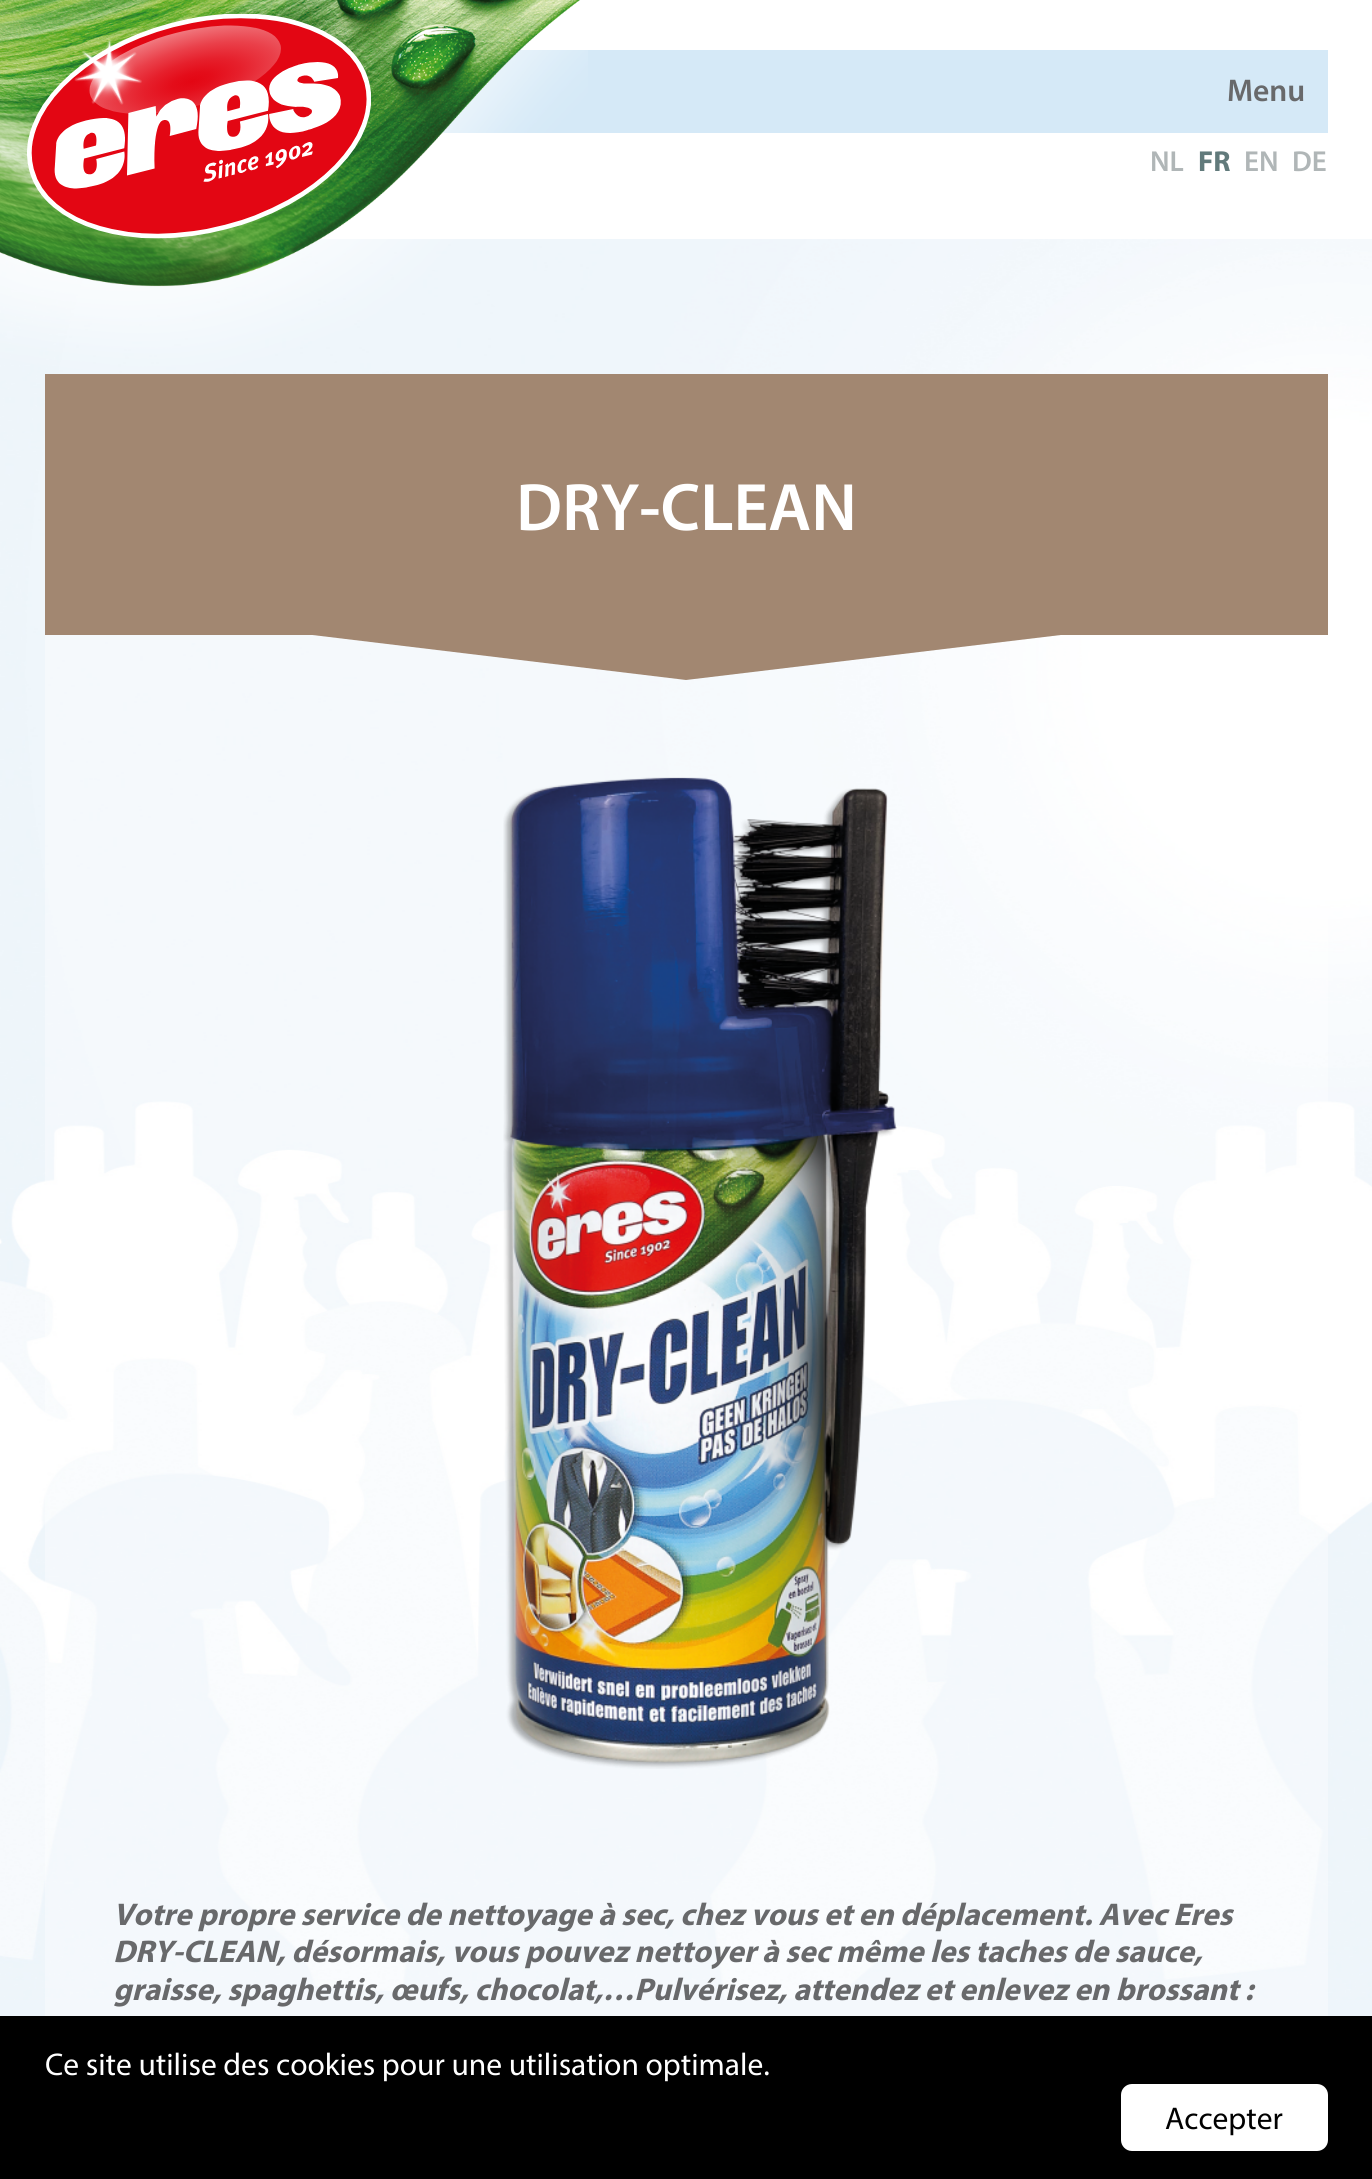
#include <cairo.h>
#include <math.h>
#include <stddef.h>

static cairo_t *c;
static void C(unsigned color){cairo_set_source_rgb(c, (color >> 16) / 255.0, (color >> 8 & 255) / 255.0, (color & 255) / 255.0);}
static void F(const char *family, double size, int italic, int bold){cairo_select_font_face(c, family, italic ? CAIRO_FONT_SLANT_ITALIC : CAIRO_FONT_SLANT_NORMAL,bold ? CAIRO_FONT_WEIGHT_BOLD : CAIRO_FONT_WEIGHT_NORMAL);cairo_set_font_size(c, size);}
static void T(double x, double y, const char *s){cairo_move_to(c, x, y);cairo_show_text(c, s);}
static void R(double x, double y, double w, double h){cairo_rectangle(c, x, y, w, h);cairo_fill(c);}
static void Q(double x, double y, double w, double h, double r){cairo_new_sub_path(c);cairo_arc(c, x + w - r, y + h - r, r, 0, M_PI / 2);cairo_arc(c, x + r, y + h - r, r, M_PI / 2, M_PI);cairo_arc(c, x + r, y + r, r, M_PI, 1.5 * M_PI);cairo_arc(c, x + w - r, y + r, r, 1.5 * M_PI, 2 * M_PI);cairo_close_path(c);}
static void I(const char *path, double x, double y, double w, double h){cairo_surface_t *image = cairo_image_surface_create_from_png(path);cairo_save(c);cairo_set_source_surface(c, image, x, y);cairo_rectangle(c, x, y, w, h);cairo_fill(c);cairo_restore(c);cairo_surface_destroy(image);}
int main(void) {
cairo_surface_t *surface = cairo_image_surface_create(CAIRO_FORMAT_RGB24, 1372, 2179);
c = cairo_create(surface);
cairo_font_options_t *options = cairo_font_options_create();
cairo_font_options_set_hint_metrics(options, CAIRO_HINT_METRICS_OFF);
cairo_font_options_set_hint_style(options, CAIRO_HINT_STYLE_NONE);
cairo_set_font_options(c, options);
cairo_set_miter_limit(c, 4);
C(0xe0edf7);
cairo_paint(c);
I("1.png",0,239,1372,1761);
C(0xffffff);
R(319,0,1053,239);
C(0xd5e9f7);
R(441,50,887,83);
cairo_set_source_rgba(c,1,1,1,0.45);
R(0,239,1372,1777);
C(0xa28771);
R(45,374,1283,261);
I("2.png",0,0,588,375);
I("3.png",27,14,344,225);
F("Myriad SemiBold",31.5,0,0);
C(0x68696b);
T(1227,101,"Menu");
F("Myriad SemiBold",29,0,0);
C(0xb0b6b7);
T(1150,171,"NL");
F("Myriad",29,0,1);
C(0x617a7b);
T(1198,171,"FR");
F("Myriad SemiBold",29,0,0);
C(0xb0b6b7);
T(1244,171,"EN");
T(1292,171,"DE");
F("Myriad SemiBold",67.5,0,0);
C(0xffffff);
T(516,530,"DRY-CLEAN");
cairo_set_source_rgba(c,1,1,1,0.35);
R(45,635,1283,1381);
C(0xa28771);
cairo_new_path(c);
cairo_move_to(c,304,634);
cairo_line_to(c,1069,634);
cairo_line_to(c,686,680);
cairo_close_path(c);
cairo_fill(c);
I("4.png",503,777,394,992);
F("Myriad",31.5,1,1);
C(0x68696b);
T(113,1925,"Votre propre service de nettoyage à sec, chez vous et en déplacement. Avec Eres");
T(113,1962,"DRY-CLEAN, désormais, vous pouvez nettoyer à sec même les taches de sauce,");
T(113,2000,"graisse, spaghettis, œufs, chocolat,…Pulvérisez, attendez et enlevez en brossant :");
C(0x000000);
R(0,2016,1372,163);
F("Myriad",31.5,0,0);
C(0xffffff);
T(45,2075,"Ce site utilise des cookies pour une utilisation optimale.");
Q(1121,2084,207,67,11);
cairo_fill(c);
C(0x000000);
T(1165,2129,"Accepter");
cairo_surface_write_to_png(surface, "o.png");
cairo_font_options_destroy(options);
cairo_destroy(c);
cairo_surface_destroy(surface);
return 0;
}
